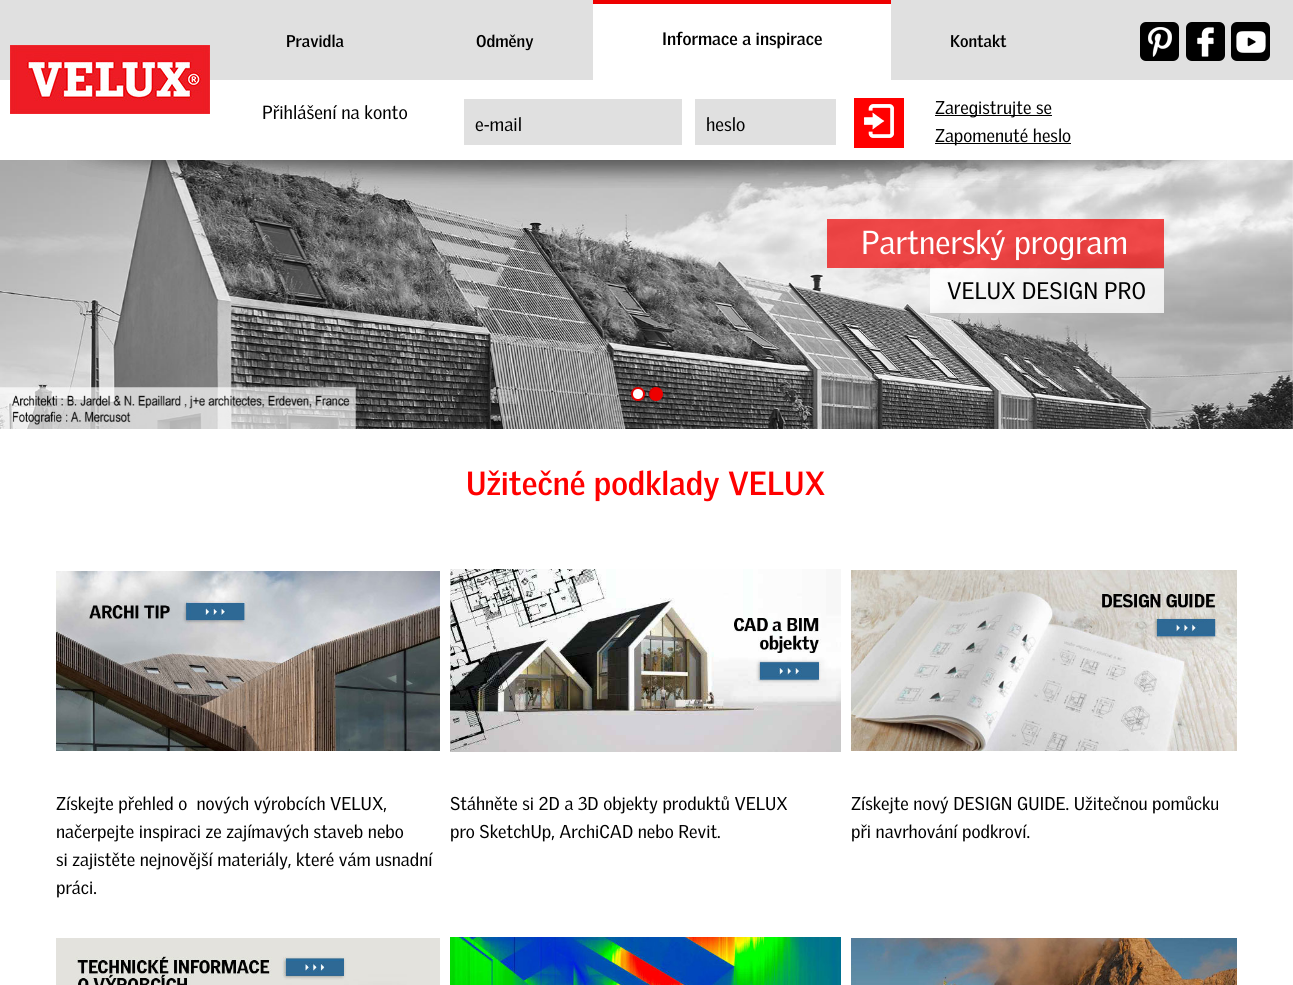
#include <cairo.h>
#include <math.h>
#include <stddef.h>

static cairo_t *c;
static void C(unsigned color){cairo_set_source_rgb(c, (color >> 16) / 255.0, (color >> 8 & 255) / 255.0, (color & 255) / 255.0);}
static void F(const char *family, double size, int italic, int bold){cairo_select_font_face(c, family, italic ? CAIRO_FONT_SLANT_ITALIC : CAIRO_FONT_SLANT_NORMAL,bold ? CAIRO_FONT_WEIGHT_BOLD : CAIRO_FONT_WEIGHT_NORMAL);cairo_set_font_size(c, size);}
static void T(double x, double y, const char *s){cairo_move_to(c, x, y);cairo_show_text(c, s);}
static void R(double x, double y, double w, double h){cairo_rectangle(c, x, y, w, h);cairo_fill(c);}
static void Q(double x, double y, double w, double h, double r){cairo_new_sub_path(c);cairo_arc(c, x + w - r, y + h - r, r, 0, M_PI / 2);cairo_arc(c, x + r, y + h - r, r, M_PI / 2, M_PI);cairo_arc(c, x + r, y + r, r, M_PI, 1.5 * M_PI);cairo_arc(c, x + w - r, y + r, r, 1.5 * M_PI, 2 * M_PI);cairo_close_path(c);}
static void S(double x, double y, double w, double h, double r, double blur, double alpha){cairo_push_group_with_content(c, CAIRO_CONTENT_ALPHA);cairo_set_operator(c, CAIRO_OPERATOR_SOURCE);for (int i = 15; i >= -15 && fmin(w, h) + blur * i / 3 > 0; i -= 2) {double e = blur * i / 6;cairo_set_source_rgba(c, 0, 0, 0, alpha * erfc((i - 1) / 8.5) / 2);Q(x - e, y - e, w + 2 * e, h + 2 * e, fmax(0, fmin(r + e + blur * .6, fmin(w, h) / 2 + e)));cairo_fill(c);}cairo_pattern_t *soft = cairo_pop_group(c);cairo_mask(c, soft);cairo_pattern_destroy(soft);}
static void I(const char *path, double x, double y, double w, double h){cairo_surface_t *image = cairo_image_surface_create_from_png(path);cairo_save(c);cairo_set_source_surface(c, image, x, y);cairo_rectangle(c, x, y, w, h);cairo_fill(c);cairo_restore(c);cairo_surface_destroy(image);}
int main(void) {
cairo_surface_t *surface = cairo_image_surface_create(CAIRO_FORMAT_RGB24, 1293, 985);
c = cairo_create(surface);
cairo_font_options_t *options = cairo_font_options_create();
cairo_font_options_set_hint_metrics(options, CAIRO_HINT_METRICS_OFF);
cairo_font_options_set_hint_style(options, CAIRO_HINT_STYLE_NONE);
cairo_set_font_options(c, options);
cairo_set_miter_limit(c, 4);
C(0xffffff);
cairo_paint(c);
C(0xe0e0e0);
R(0,0,1293,80);
C(0x000000);
Q(1140,22,39,39,6);
cairo_fill(c);
Q(1186,22,39,39,6);
cairo_fill(c);
Q(1231,22,39,39,6);
cairo_fill(c);
I("1.png",1148,27,24,30);
I("2.png",1197,27,17,30);
I("3.png",1236,31,30,22);
I("13.png",0,160,1293,269);
I("4.png",67,160,1160,28);
F("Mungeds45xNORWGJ",16.5,0,1);
T(286,47,"Pravidla");
T(476,47,"Odměny");
C(0xffffff);
R(593,4,298,76);
C(0xee0000);
R(593,0,298,4);
F("Mungeds45xNORWGJ",17.5,0,1);
C(0x000000);
T(662,45,"Informace a inspirace");
F("Mungeds45xNORWGJ",16.5,0,1);
T(950,47,"Kontakt");
I("5.png",10,45,200,69);
F("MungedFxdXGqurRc",18.5,0,0);
T(262,119,"Přihlášení na konto");
C(0xff0000);
R(854,98,50,50);
I("6.png",864,104,30,34);
C(0x000000);
R(935,115,117,1);
F("MungedFxdXGqurRc",18,0,0);
T(935,114,"Zaregistrujte se");
R(935,143,136,1);
T(935,142,"Zapomenuté heslo");
C(0xe0e0e0);
R(464,99,218,46);
F("MungedFxdXGqurRc",18.5,0,0);
C(0x000000);
T(475,131,"e-mail");
C(0xe0e0e0);
R(695,99,141,46);
C(0x000000);
T(706,131,"heslo");
F("Mungeds45xNORWGJ",32.5,0,1);
C(0xff0000);
T(466,495,"Užitečné podklady VELUX");
I("7.png",56,571,384,180);
I("8.png",450,569,391,183);
I("9.png",851,570,386,181);
F("MungedFxdXGqurRc",18,0,0);
C(0x000000);
T(56,810,"Získejte přehled o  nových výrobcích VELUX,");
T(56,838,"načerpejte inspiraci ze zajímavých staveb nebo");
T(56,866,"si zajistěte nejnovější materiály, které vám usnadní");
T(56,894,"práci.");
T(450,810,"Stáhněte si 2D a 3D objekty produktů VELUX");
T(450,838,"pro SketchUp, ArchiCAD nebo Revit.");
T(851,810,"Získejte nový DESIGN GUIDE. Užitečnou pomůcku");
T(851,838,"při navrhování podkroví.");
I("10.png",56,938,384,47);
I("11.png",450,937,391,48);
I("12.png",851,938,386,47);
cairo_set_source_rgba(c,0.933,0,0,0.7);
R(827,219,337,49);
F("MungedFxdXGqurRc",32.25,0,0);
C(0xffffff);
T(861,254,"Partnerský program");
cairo_set_source_rgba(c,1,1,1,0.8);
R(930,269,234,44);
F("MungedFxdXGqurRc",23.25,0,0);
C(0x000000);
T(947,299,"VELUX DESIGN PRO");
C(0x000000);
S(632,388,14,14,7,.5,.1);
C(0xee0000);
cairo_arc(c,638,394,7,0,2 * M_PI);
cairo_fill(c);
cairo_set_source_rgba(c,0,0,0,0.1);
cairo_new_path(c);
cairo_move_to(c,639,388);
cairo_curve_to(c,641,388,642.5,388.5,643.5,389.5);
cairo_curve_to(c,637,382,625.5,393.5,633.5,399.5);
cairo_curve_to(c,630.5,395.5,632.5,388,639,388);
cairo_close_path(c);
cairo_fill(c);
C(0xffffff);
cairo_arc(c,638,394,5,0,2 * M_PI);
cairo_fill(c);
C(0x000000);
S(650,388,14,14,7,.5,.1);
C(0xee0000);
cairo_arc(c,656,394,7,0,2 * M_PI);
cairo_fill(c);
cairo_set_source_rgba(c,0,0,0,0.1);
cairo_new_path(c);
cairo_move_to(c,657,388);
cairo_curve_to(c,659,388,660.5,388.5,661.5,389.5);
cairo_curve_to(c,655,382,643.5,393.5,651.5,399.5);
cairo_curve_to(c,648.5,395.5,650.5,388,657,388);
cairo_close_path(c);
cairo_fill(c);
cairo_surface_write_to_png(surface, "o.png");
cairo_font_options_destroy(options);
cairo_destroy(c);
cairo_surface_destroy(surface);
return 0;
}
